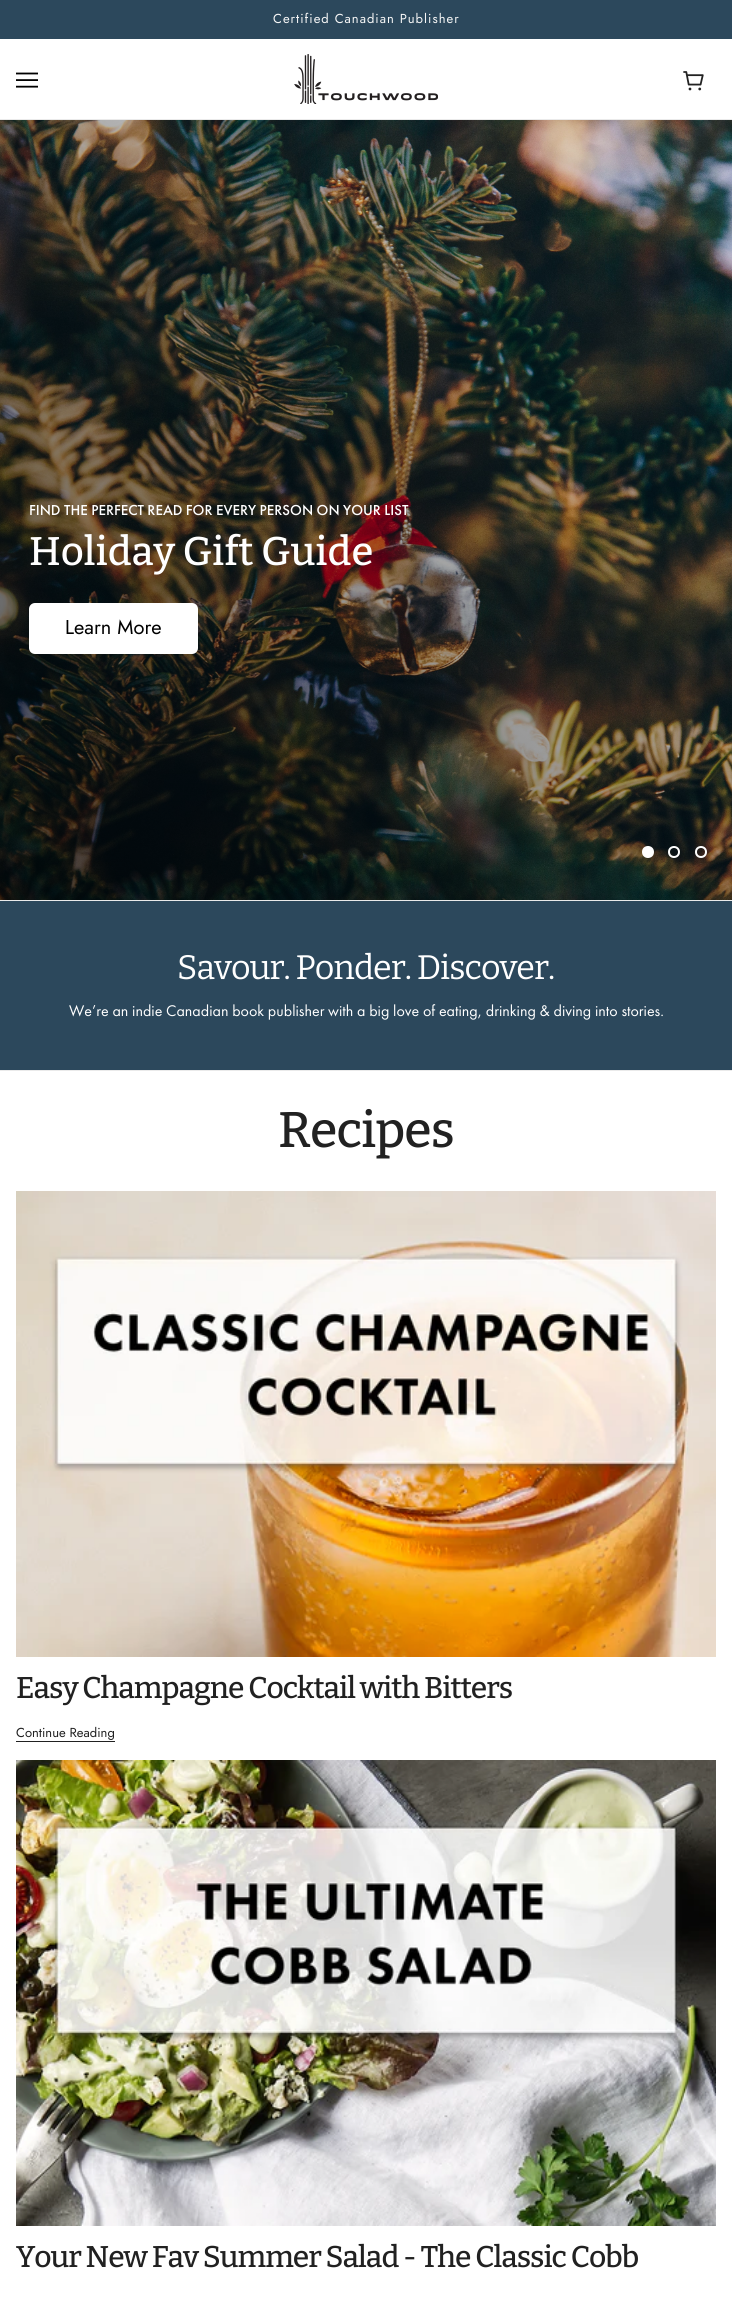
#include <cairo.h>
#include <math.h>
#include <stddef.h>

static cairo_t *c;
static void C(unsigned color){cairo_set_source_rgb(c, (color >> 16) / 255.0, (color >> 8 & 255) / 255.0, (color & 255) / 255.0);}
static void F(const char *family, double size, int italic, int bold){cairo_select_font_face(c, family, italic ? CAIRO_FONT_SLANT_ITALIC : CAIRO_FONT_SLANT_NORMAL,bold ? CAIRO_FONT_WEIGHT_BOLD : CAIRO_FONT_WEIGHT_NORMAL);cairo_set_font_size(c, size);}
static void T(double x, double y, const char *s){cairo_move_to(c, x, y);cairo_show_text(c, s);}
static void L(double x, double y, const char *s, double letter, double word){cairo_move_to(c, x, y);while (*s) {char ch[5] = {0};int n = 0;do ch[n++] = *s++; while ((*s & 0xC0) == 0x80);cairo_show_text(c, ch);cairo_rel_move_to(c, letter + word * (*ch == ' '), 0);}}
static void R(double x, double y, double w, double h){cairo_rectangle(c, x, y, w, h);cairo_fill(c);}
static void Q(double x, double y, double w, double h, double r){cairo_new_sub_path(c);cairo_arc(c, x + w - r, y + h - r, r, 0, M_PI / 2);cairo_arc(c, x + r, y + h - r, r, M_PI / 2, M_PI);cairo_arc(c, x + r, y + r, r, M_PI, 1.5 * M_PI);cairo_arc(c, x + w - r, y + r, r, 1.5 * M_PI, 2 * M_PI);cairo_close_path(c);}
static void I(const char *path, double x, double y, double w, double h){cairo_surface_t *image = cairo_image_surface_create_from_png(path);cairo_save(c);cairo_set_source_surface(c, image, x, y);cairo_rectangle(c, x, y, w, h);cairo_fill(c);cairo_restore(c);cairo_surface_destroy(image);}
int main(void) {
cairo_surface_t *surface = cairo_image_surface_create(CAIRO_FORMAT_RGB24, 732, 2303);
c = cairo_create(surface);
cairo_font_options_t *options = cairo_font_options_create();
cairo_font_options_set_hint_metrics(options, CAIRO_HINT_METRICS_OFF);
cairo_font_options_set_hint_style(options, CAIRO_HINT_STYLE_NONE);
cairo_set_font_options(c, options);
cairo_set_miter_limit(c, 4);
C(0xffffff);
cairo_paint(c);
C(0x2c485c);
R(0,0,732,39);
F("Jost",13,0,0);
C(0xf7f7f7);
L(273,23,"Certified Canadian Publisher",1,0);
C(0xeaeaea);
R(0,119,732,1);
I("1.png",16,72,22,16);
I("2.png",294,54,144,50);
I("3.png",683,71,21,20);
I("4.png",0,120,732,780);
F("Futura PT Medium",15,0,0);
C(0xffffff);
T(29,515,"FIND THE PERFECT READ FOR EVERY PERSON ON YOUR LIST");
F("Bitter Medium",40,0,0);
T(29,565,"Holiday Gift Guide");
Q(29,603,169,51,6);
cairo_fill(c);
F("Jost",20,0,0);
C(0x000000);
T(65,634,"Learn More");
C(0xffffff);
cairo_new_path(c);
cairo_arc(c,648,852,5,0,2 * M_PI);
cairo_fill_preserve(c);
cairo_stroke(c);
cairo_arc(c,674,852,5,0,2 * M_PI);
cairo_stroke(c);
cairo_arc(c,701,852,5,0,2 * M_PI);
cairo_stroke(c);
C(0x2c485c);
R(0,901,732,169);
C(0xeaeaea);
R(0,900,732,1);
F("Bitter",34,0,0);
C(0xffffff);
L(177,979,"Savour. Ponder. Discover.",-1,0);
F("Futura PT",16,0,0);
T(69,1016,"We’re an indie Canadian book publisher with a big love of eating, drinking & diving into stories.");
C(0xeaeaea);
R(0,1070,732,1);
F("Bitter Medium",50,0,0);
C(0x212121);
L(278,1147,"Recipes",-1,0);
I("5.png",16,1191,700,466);
F("Bitter Medium",30,0,0);
L(16,1698,"Easy Champagne Cocktail with Bitters",-1,0);
F("Jost",13,0,0);
T(16,1737,"Continue Reading");
R(16,1741,99,1);
I("6.png",16,1760,700,466);
F("Bitter Medium",30,0,0);
L(16,2267,"Your New Fav Summer Salad - The Classic Cobb",-1,0);
cairo_surface_write_to_png(surface, "o.png");
cairo_font_options_destroy(options);
cairo_destroy(c);
cairo_surface_destroy(surface);
return 0;
}
